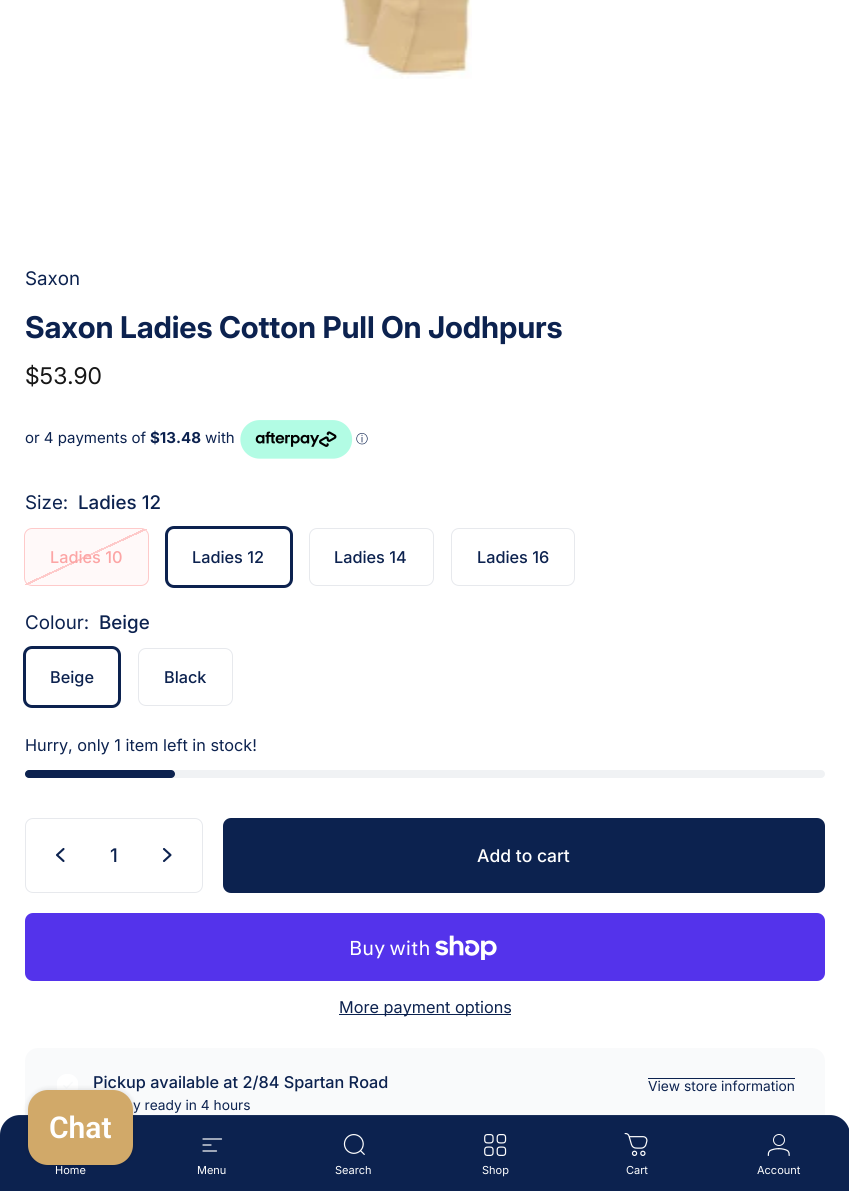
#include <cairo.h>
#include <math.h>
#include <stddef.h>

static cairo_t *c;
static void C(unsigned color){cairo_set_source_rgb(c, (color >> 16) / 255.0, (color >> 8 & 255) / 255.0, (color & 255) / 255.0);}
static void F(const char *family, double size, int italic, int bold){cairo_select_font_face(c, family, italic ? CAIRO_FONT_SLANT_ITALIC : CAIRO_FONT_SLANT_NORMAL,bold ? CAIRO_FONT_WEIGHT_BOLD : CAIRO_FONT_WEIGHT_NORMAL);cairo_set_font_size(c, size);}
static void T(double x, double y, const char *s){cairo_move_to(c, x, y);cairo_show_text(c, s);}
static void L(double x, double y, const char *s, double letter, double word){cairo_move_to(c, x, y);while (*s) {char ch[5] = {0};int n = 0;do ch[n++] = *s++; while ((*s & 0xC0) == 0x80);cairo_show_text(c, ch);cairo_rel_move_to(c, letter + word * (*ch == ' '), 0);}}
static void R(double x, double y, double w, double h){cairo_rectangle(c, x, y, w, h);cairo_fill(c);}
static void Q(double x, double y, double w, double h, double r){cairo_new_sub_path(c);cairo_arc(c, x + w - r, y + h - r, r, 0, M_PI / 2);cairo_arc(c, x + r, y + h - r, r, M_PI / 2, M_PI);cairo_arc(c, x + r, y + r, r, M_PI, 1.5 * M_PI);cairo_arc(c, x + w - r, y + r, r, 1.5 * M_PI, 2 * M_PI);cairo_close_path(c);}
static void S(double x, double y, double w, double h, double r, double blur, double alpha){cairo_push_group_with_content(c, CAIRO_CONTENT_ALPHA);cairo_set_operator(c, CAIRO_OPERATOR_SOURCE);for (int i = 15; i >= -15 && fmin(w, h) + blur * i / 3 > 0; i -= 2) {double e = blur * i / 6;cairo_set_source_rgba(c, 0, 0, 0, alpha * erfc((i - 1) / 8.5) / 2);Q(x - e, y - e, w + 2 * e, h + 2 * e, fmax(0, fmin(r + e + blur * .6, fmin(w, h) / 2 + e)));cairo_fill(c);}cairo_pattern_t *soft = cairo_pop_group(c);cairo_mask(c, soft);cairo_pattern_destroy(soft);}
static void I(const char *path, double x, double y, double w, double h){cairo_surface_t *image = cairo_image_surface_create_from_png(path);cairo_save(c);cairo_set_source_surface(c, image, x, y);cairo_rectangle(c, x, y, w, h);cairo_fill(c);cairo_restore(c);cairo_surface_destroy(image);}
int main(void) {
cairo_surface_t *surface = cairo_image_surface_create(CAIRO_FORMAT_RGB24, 849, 1191);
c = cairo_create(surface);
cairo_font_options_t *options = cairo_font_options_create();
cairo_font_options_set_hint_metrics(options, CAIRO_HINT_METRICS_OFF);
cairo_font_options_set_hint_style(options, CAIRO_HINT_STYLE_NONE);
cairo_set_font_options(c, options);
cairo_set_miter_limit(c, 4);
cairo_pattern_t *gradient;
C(0xffffff);
cairo_paint(c);
I("1.png",340,0,132,79);
F("Inter",18.75,0,0);
C(0x0c224f);
T(25,285,"Saxon");
F("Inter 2",30,0,1);
L(25,338,"Saxon Ladies Cotton Pull On Jodhpurs",-.15,0);
F("Inter 2",23,0,0);
C(0x171717);
T(25,384,"$53.90");
F("Inter",15,0,0);
C(0x0c224f);
T(25,443,"or 4 payments of");
F("Inter",15,0,1);
T(150,443,"$13.48");
F("Inter",15,0,0);
T(205,443,"with");
I("2.png",240,420,113,39);
F("WenQuanYi Zen Hei Medium",12,0,0);
T(356,443,"ⓘ");
F("Inter",18.75,0,0);
T(25,509,"Size:");
F("Inter Medium",18.75,0,0);
T(78,509,"Ladies 12");
gradient = cairo_pattern_create_linear(65,510,108,603);
cairo_pattern_add_color_stop_rgba(gradient,.49,1,1,1,1);
cairo_pattern_add_color_stop_rgba(gradient,.49,0.996,0.792,0.792,1);
cairo_pattern_add_color_stop_rgba(gradient,.51,0.996,0.792,0.792,1);
cairo_pattern_add_color_stop_rgba(gradient,.51,1,1,1,1);
cairo_set_source(c,gradient);
cairo_pattern_destroy(gradient);
R(25,529,122,56);
cairo_set_source_rgba(c,0.996,0.792,0.792,0.11);
Q(25,529,123,56,6);
cairo_fill(c);
Q(24.5,528.5,124,57,7.5);
C(0xfecaca);
cairo_set_line_width(c,1);
cairo_stroke(c);
F("Inter Medium",16.25,0,0);
C(0xfca5a5);
T(50,563,"Ladies 10");
Q(166.5,527.5,125,59,7.5);
C(0x0c224f);
cairo_set_line_width(c,3);
cairo_stroke(c);
T(192,563,"Ladies 12");
Q(309.5,528.5,124,57,7.5);
C(0xe7e9ed);
cairo_set_line_width(c,1);
cairo_stroke(c);
C(0x0c224f);
T(334,563,"Ladies 14");
Q(451.5,528.5,123,57,7.5);
C(0xe7e9ed);
cairo_stroke(c);
C(0x0c224f);
T(477,563,"Ladies 16");
F("Inter",18.75,0,0);
T(25,629,"Colour:");
F("Inter Medium",18.75,0,0);
T(99,629,"Beige");
Q(24.5,647.5,95,59,7.5);
cairo_set_line_width(c,3);
cairo_stroke(c);
F("Inter Medium",16.25,0,0);
T(50,683,"Beige");
Q(138.5,648.5,94,57,7.5);
C(0xe7e9ed);
cairo_set_line_width(c,1);
cairo_stroke(c);
C(0x0c224f);
T(164,683,"Black");
F("Inter",16.25,0,0);
T(25,751,"Hurry, only 1 item left in stock!");
C(0xf0f2f4);
Q(25,770,800,8,4);
cairo_fill(c);
C(0x0c224f);
Q(25,770,150,8,4);
cairo_fill(c);
Q(25.5,818.5,177,74,7.5);
C(0xe7e9ed);
cairo_stroke(c);
cairo_new_path(c);
cairo_move_to(c,63.5,849);
cairo_line_to(c,57,855);
cairo_line_to(c,63.5,861);
C(0x0c224f);
cairo_set_line_width(c,2.1);
cairo_set_line_cap(c,CAIRO_LINE_CAP_ROUND);
cairo_set_line_join(c,CAIRO_LINE_JOIN_ROUND);
cairo_stroke(c);
F("Inter Medium",18.75,0,0);
T(110,862,"1");
cairo_new_path(c);
cairo_move_to(c,164,849);
cairo_line_to(c,170.5,855);
cairo_line_to(c,164,861);
cairo_stroke(c);
Q(224.5,819.5,599,72,6.5);
cairo_fill_preserve(c);
cairo_set_line_width(c,3);
cairo_set_line_cap(c,CAIRO_LINE_CAP_BUTT);
cairo_set_line_join(c,CAIRO_LINE_JOIN_MITER);
cairo_stroke(c);
F("Inter Medium",17.5,0,0);
C(0xffffff);
T(477,862,"Add to cart");
C(0x5433eb);
Q(25,913,800,68,8);
cairo_fill(c);
F("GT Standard",20,0,0);
C(0xffffff);
T(349,955,"Buy with");
I("3.png",435,935,62,25);
C(0x0c224f);
R(339,1014,172,1);
F("Inter",16.25,0,0);
T(339,1013,"More payment options");
C(0xf9fafb);
Q(25,1048,800,92,13);
cairo_fill(c);
I("4.png",57,1074,21,16);
F("Inter Medium",16.25,0,0);
C(0x0c224f);
T(93,1088,"Pickup available at 2/84 Spartan Road");
F("Inter",13.75,0,0);
T(133,1110,"y ready in 4 hours");
T(648,1091,"View store information");
R(648,1078,147,1);
cairo_new_path(c);
cairo_move_to(c,20,1115);
cairo_line_to(c,830,1115);
cairo_curve_to(c,841,1115,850,1124,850,1135);
cairo_line_to(c,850,1191);
cairo_line_to(c,0,1191);
cairo_line_to(c,0,1135);
cairo_curve_to(c,0,1124,9,1115,20,1115);
cairo_close_path(c);
cairo_fill(c);
cairo_set_source_rgba(c,1,1,1,0.06);
R(10,1115,830,1);
C(0x000000);
S(28,1090,105,75,20,3,.15);
C(0xd1a969);
Q(28,1090,105,75,20);
cairo_fill(c);
F("Roboto SemiBold",30,0,0);
C(0xffffff);
T(49,1138,"Chat");
F("Inter",11,0,0);
T(55,1174,"Home");
cairo_new_path(c);
cairo_move_to(c,203,1139);
cairo_line_to(c,221.5,1139);
cairo_move_to(c,203,1145);
cairo_line_to(c,211,1145);
cairo_move_to(c,203,1151);
cairo_line_to(c,216.5,1151);
cairo_set_line_width(c,1.2);
cairo_set_line_cap(c,CAIRO_LINE_CAP_ROUND);
cairo_set_line_join(c,CAIRO_LINE_JOIN_ROUND);
cairo_stroke(c);
T(197,1174,"Menu");
I("5.png",343,1134,22,21);
T(335,1174,"Search");
I("6.png",484,1134,23,22);
T(482,1174,"Shop");
I("7.png",624,1133,24,23);
T(626,1174,"Cart");
I("8.png",767,1134,23,22);
T(757,1174,"Account");
cairo_surface_write_to_png(surface, "o.png");
cairo_font_options_destroy(options);
cairo_destroy(c);
cairo_surface_destroy(surface);
return 0;
}
